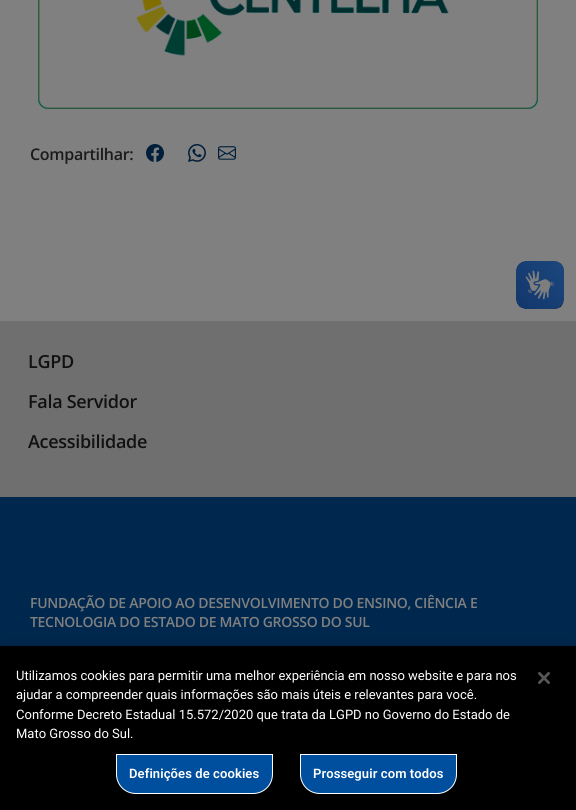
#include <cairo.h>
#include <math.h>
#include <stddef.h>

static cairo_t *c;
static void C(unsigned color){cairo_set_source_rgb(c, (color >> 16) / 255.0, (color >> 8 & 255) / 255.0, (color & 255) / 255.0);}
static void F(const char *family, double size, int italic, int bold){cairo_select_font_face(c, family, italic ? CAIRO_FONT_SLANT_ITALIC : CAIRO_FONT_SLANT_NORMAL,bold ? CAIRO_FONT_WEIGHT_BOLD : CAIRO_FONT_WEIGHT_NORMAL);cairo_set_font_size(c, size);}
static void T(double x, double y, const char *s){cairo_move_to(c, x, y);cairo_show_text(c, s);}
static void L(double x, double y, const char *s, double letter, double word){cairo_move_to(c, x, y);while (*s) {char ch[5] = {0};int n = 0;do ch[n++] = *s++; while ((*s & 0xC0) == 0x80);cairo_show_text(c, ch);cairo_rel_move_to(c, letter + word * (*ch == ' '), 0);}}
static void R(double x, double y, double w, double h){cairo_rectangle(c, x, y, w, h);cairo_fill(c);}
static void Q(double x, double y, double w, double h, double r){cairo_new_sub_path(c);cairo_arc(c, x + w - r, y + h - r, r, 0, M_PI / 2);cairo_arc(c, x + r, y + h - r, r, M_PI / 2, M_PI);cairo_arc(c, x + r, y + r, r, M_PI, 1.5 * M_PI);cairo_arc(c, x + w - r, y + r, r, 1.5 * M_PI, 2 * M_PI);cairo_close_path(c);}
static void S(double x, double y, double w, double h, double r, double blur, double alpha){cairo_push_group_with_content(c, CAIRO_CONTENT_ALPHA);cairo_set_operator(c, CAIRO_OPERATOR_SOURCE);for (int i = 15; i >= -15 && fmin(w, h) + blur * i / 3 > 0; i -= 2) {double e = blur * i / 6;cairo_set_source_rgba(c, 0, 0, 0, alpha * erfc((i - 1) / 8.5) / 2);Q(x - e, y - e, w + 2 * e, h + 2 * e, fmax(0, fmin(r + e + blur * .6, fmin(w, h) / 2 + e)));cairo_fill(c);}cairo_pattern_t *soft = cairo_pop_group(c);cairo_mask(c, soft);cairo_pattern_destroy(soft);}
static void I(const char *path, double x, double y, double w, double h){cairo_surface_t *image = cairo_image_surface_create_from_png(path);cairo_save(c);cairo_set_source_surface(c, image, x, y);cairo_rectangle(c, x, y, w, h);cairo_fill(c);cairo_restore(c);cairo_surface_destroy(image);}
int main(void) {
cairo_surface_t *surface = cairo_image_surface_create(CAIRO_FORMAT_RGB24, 576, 810);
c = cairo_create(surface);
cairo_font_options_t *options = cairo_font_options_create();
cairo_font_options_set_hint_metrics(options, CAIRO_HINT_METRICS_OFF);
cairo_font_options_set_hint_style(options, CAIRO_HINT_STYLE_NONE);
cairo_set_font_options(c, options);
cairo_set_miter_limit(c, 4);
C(0x808080);
cairo_paint(c);
I("1.png",38,0,500,109);
F("Open Sans SemiBold",16,0,0);
C(0x1a1a1a);
L(30,160,"Compartilhar:",-.3,0);
I("2.png",146,144,18,18);
I("3.png",188,144,18,18);
I("4.png",218,146,18,14);
I("5.png",516,261,48,48);
I("6.png",516,261,48,48);
C(0x6f6f6f);
R(0,321,576,176);
F("Open Sans SemiBold",18,0,0);
C(0x121010);
L(28,368,"LGPD",-.3,0);
L(28,408,"Fala Servidor",-.3,0);
L(28,448,"Acessibilidade",-.3,0);
C(0x00284f);
R(0,497,576,149);
F("Open Sans SemiBold",14,0,0);
C(0x808080);
L(30,608,"FUNDAÇÃO DE APOIO AO DESENVOLVIMENTO DO ENSINO, CIÊNCIA E",-.3,0);
L(30,627,"TECNOLOGIA DO ESTADO DE MATO GROSSO DO SUL",-.3,0);
C(0x000000);
S(0,646,576,164,0,9,.2);
C(0x000000);
R(0,646,576,164);
F("Roboto",13,0,0);
C(0xffffff);
T(16,680,"Utilizamos cookies para permitir uma melhor experiência em nosso website e para nos");
T(16,699,"ajudar a compreender quais informações são mais úteis e relevantes para você.");
T(16,719,"Conforme Decreto Estadual 15.572/2020 que trata da LGPD no Governo do Estado de");
T(16,738,"Mato Grosso do Sul.");
C(0x004f9f);
cairo_new_path(c);
cairo_move_to(c,116.5,754.5);
cairo_line_to(c,272.5,754.5);
cairo_line_to(c,272.5,774);
cairo_curve_to(c,272.5,785,264,793.5,253,793.5);
cairo_line_to(c,136,793.5);
cairo_curve_to(c,125,793.5,116.5,785,116.5,774);
cairo_close_path(c);
cairo_fill_preserve(c);
C(0xffffff);
cairo_set_line_width(c,1);
cairo_stroke(c);
F("Roboto SemiBold",13,0,0);
L(129,778,"Definições de cookies",.1,0);
C(0x004f9f);
cairo_new_path(c);
cairo_move_to(c,300.5,754.5);
cairo_line_to(c,456.5,754.5);
cairo_line_to(c,456.5,774);
cairo_curve_to(c,456.5,785,448,793.5,437,793.5);
cairo_line_to(c,320,793.5);
cairo_curve_to(c,309,793.5,300.5,785,300.5,774);
cairo_close_path(c);
cairo_fill_preserve(c);
C(0xffffff);
cairo_stroke(c);
L(313,778,"Prosseguir com todos",.1,0);
I("7.png",538,672,12,12);
cairo_surface_write_to_png(surface, "o.png");
cairo_font_options_destroy(options);
cairo_destroy(c);
cairo_surface_destroy(surface);
return 0;
}
